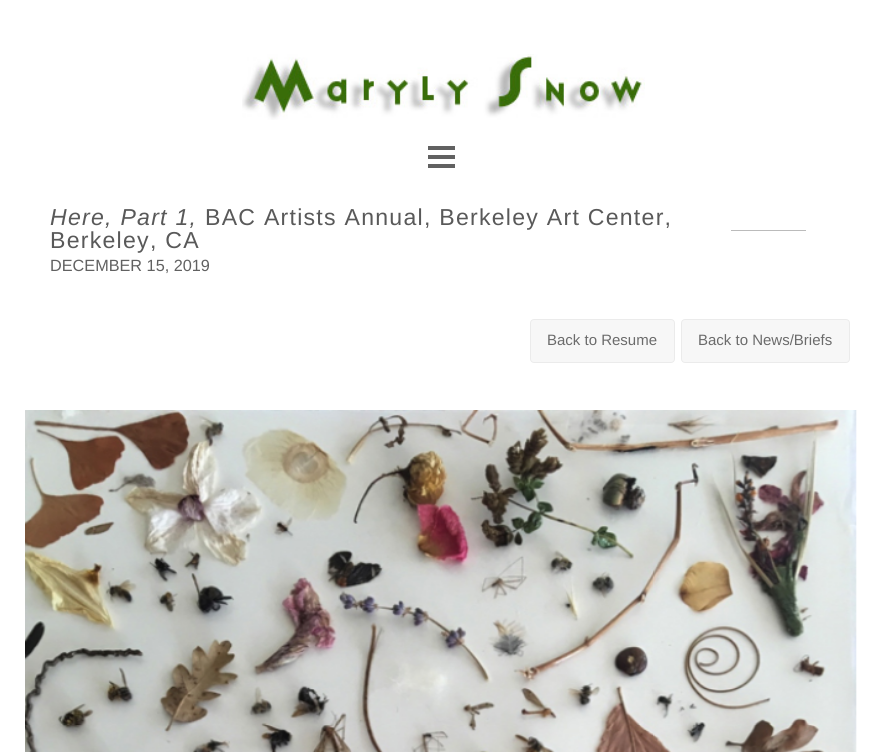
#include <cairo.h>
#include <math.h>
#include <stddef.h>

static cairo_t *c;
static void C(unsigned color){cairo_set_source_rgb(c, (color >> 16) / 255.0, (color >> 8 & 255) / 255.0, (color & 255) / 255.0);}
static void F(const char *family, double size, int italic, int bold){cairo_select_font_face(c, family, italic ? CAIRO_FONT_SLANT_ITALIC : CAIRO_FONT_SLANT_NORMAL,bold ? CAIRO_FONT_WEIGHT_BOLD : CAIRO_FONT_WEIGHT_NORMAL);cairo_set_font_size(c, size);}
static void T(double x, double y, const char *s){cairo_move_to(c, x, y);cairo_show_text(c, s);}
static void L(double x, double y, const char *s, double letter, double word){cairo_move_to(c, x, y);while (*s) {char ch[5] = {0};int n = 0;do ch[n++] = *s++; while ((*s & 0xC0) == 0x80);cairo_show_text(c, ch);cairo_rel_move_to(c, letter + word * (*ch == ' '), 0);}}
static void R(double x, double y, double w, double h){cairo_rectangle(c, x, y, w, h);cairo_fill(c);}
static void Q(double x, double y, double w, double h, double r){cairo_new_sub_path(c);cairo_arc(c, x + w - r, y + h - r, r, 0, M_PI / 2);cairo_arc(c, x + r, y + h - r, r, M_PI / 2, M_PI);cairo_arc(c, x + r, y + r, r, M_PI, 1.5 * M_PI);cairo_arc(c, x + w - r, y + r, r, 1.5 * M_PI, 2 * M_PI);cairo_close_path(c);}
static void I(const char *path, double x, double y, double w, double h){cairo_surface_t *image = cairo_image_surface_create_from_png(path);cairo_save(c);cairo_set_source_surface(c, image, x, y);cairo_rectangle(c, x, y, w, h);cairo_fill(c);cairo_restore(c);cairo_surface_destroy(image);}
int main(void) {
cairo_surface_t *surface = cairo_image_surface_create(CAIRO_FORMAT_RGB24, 881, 752);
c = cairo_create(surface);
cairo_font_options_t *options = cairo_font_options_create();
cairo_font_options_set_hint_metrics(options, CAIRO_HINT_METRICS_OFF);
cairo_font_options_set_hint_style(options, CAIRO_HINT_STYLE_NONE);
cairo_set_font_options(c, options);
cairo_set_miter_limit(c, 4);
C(0xffffff);
cairo_paint(c);
I("1.png",242,54,403,66);
C(0x616161);
R(428,155,27,4);
R(428,146,27,4);
R(428,164,27,4);
F("Liberation Sans",23.1,1,0);
C(0x595959);
L(50,225,"Here, Part 1,",1.25,0);
F("Liberation Sans",23.1,0,0);
L(205,225,"BAC Artists Annual, Berkeley Art Center,",1.25,0);
L(50,248,"Berkeley, CA",1.25,0);
C(0xbbbbbb);
R(731,230,75,1);
F("Liberation Sans",16.25,0,0);
C(0x616161);
T(50,271,"DECEMBER 15, 2019");
C(0xf7f7f7);
Q(530.5,319.5,144,43,3.5);
cairo_fill_preserve(c);
C(0xebebeb);
cairo_set_line_width(c,1);
cairo_stroke(c);
F("Liberation Sans",15,0,0);
C(0x6b6b6b);
T(547,345,"Back to Resume");
C(0xf7f7f7);
Q(681.5,319.5,168,43,3.5);
cairo_fill_preserve(c);
C(0xebebeb);
cairo_stroke(c);
C(0x6b6b6b);
T(698,345,"Back to News/Briefs");
I("2.png",25,410,832,342);
cairo_surface_write_to_png(surface, "o.png");
cairo_font_options_destroy(options);
cairo_destroy(c);
cairo_surface_destroy(surface);
return 0;
}
